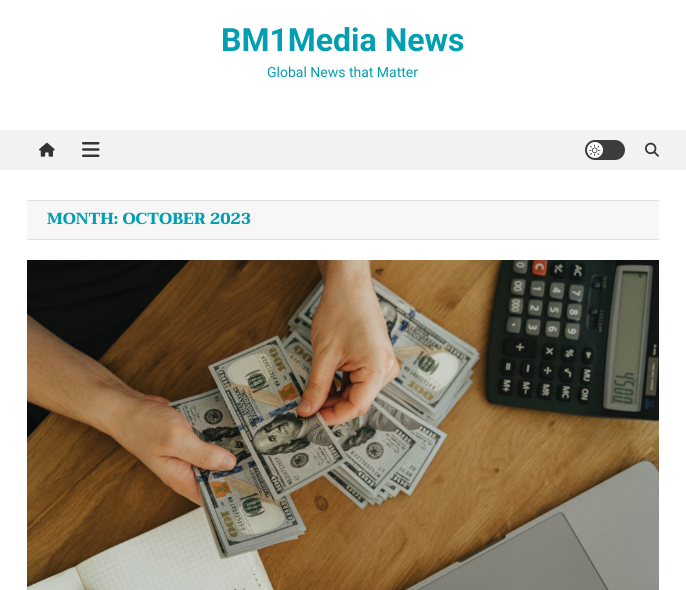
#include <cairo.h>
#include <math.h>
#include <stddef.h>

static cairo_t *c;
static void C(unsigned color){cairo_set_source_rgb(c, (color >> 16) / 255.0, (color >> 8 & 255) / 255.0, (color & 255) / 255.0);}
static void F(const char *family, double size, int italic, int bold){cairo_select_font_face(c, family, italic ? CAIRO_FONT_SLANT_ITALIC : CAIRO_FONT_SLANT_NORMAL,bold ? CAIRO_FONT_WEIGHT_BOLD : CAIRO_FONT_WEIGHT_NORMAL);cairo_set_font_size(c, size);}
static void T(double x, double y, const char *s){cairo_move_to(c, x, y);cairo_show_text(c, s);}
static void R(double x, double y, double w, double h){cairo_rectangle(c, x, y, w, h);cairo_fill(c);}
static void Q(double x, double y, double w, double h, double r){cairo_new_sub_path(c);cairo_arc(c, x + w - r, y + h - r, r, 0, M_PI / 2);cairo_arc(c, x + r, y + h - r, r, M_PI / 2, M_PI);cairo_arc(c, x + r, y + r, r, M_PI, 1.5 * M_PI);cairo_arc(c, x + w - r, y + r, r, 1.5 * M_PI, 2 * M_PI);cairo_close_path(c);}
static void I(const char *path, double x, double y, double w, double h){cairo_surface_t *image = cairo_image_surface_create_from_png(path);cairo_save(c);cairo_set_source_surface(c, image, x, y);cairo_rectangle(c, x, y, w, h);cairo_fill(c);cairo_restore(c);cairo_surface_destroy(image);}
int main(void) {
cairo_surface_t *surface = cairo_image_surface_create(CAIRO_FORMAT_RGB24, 686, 590);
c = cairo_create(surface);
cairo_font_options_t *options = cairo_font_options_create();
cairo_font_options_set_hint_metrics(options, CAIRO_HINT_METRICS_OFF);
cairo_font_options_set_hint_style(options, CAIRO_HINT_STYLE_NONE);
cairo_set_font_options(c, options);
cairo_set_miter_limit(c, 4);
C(0xffffff);
cairo_paint(c);
F("Roboto",32,0,1);
C(0x029fb2);
T(221,51,"BM1Media News");
F("Roboto",14,0,0);
T(267,77,"Global News that Matter");
C(0xf2f2f2);
R(0,130,686,40);
I("1.png",39,142,16,15);
I("2.png",82,142,18,15);
C(0x3d3d3d);
Q(585,140,40,20,10);
cairo_fill(c);
C(0xffffff);
cairo_arc(c,595,150,8,0,2 * M_PI);
cairo_fill(c);
I("3.png",589,144,12,12);
I("4.png",645,142,14,15);
C(0xf7f7f7);
R(27,201,632,38);
C(0xe1e1e1);
R(27,200,632,1);
R(27,239,632,1);
F("Taviraj",16,0,1);
C(0x029fb2);
T(47,224,"MONTH: OCTOBER 2023");
I("5.png",27,260,632,330);
cairo_surface_write_to_png(surface, "o.png");
cairo_font_options_destroy(options);
cairo_destroy(c);
cairo_surface_destroy(surface);
return 0;
}
